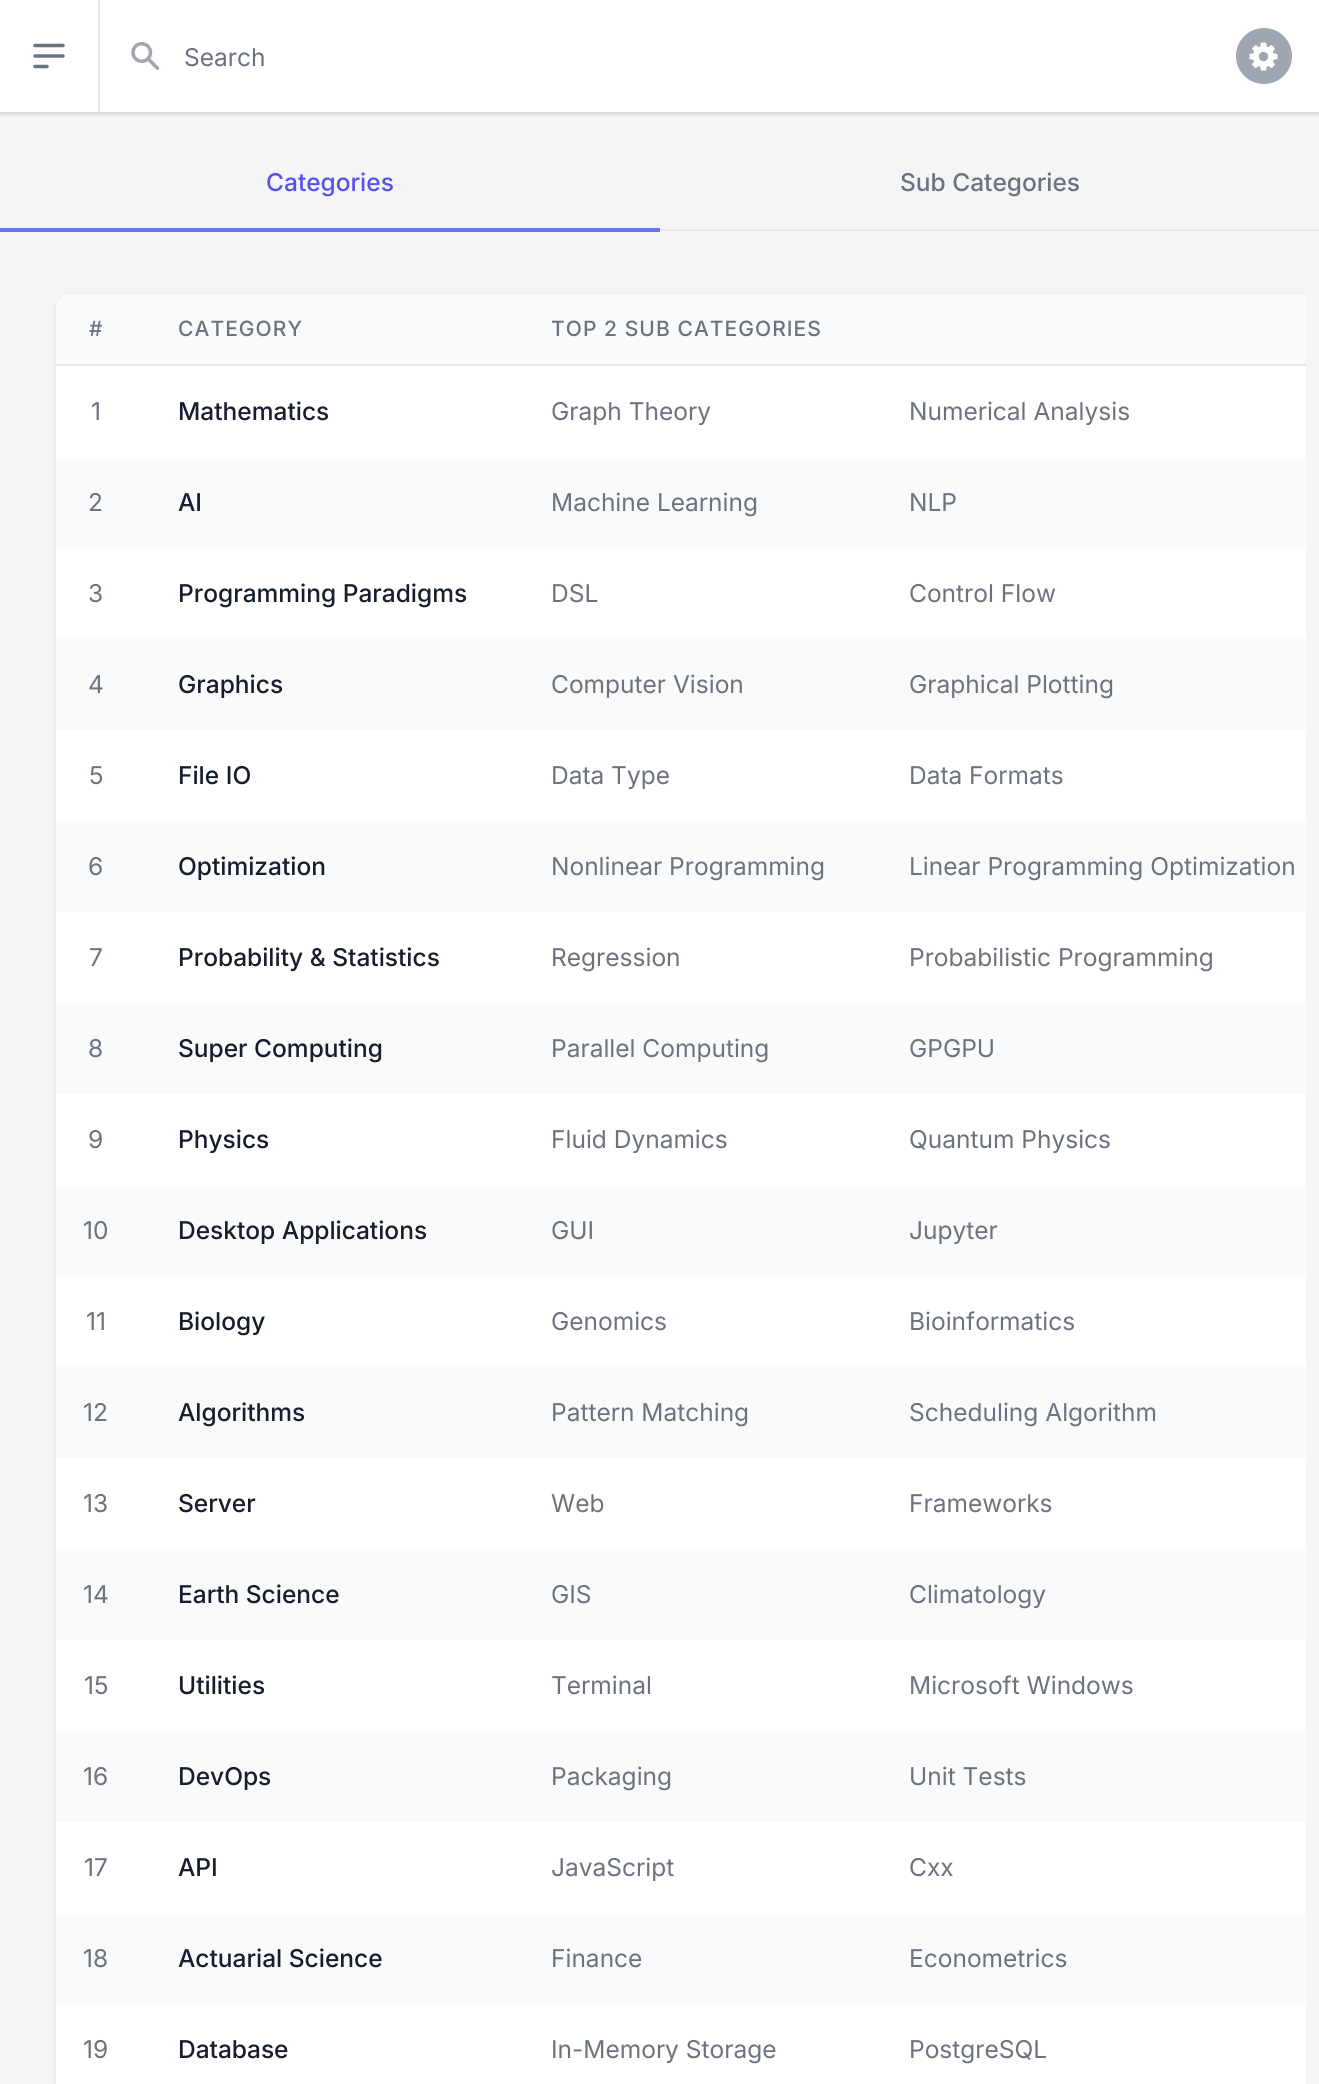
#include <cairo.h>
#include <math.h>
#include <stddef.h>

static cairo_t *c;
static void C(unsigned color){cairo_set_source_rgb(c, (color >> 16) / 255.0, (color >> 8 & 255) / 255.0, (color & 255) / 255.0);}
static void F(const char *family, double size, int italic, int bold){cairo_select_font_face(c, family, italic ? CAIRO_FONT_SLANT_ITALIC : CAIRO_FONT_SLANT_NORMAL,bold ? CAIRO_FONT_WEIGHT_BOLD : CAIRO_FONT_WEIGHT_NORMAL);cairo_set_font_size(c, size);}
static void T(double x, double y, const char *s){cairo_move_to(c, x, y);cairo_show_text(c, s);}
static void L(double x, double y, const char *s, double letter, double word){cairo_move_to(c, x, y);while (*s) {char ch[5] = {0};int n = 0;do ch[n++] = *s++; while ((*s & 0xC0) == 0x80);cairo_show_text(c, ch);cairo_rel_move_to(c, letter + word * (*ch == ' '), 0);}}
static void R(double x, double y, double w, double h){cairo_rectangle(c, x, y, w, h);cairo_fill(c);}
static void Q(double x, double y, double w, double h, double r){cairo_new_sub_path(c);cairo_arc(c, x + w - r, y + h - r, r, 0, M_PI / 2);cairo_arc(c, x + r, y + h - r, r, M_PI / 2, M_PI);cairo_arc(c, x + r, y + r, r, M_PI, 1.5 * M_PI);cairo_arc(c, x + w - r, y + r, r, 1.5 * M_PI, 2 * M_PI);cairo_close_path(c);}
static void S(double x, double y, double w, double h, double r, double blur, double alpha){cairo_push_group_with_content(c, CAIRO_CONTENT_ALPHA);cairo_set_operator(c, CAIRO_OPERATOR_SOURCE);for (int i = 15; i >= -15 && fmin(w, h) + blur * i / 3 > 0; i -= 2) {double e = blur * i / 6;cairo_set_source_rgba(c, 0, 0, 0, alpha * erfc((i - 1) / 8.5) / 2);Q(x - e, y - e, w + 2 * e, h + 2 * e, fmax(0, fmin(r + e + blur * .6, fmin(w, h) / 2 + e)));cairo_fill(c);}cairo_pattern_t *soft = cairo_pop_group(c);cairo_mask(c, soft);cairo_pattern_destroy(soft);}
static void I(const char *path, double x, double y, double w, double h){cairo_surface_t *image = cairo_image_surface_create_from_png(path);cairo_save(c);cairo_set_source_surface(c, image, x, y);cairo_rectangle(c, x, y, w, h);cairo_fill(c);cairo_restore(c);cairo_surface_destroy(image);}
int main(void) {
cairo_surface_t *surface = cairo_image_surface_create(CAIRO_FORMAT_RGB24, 1319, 2084);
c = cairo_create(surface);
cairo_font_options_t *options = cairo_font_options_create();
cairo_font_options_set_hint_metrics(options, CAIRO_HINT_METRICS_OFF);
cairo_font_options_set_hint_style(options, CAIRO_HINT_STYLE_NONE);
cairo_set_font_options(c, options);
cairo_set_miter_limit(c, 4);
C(0xf4f5f7);
cairo_paint(c);
C(0x000000);
S(0,2,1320,112,0,2,.06);
S(0,2,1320,112,0,2.5,.1);
C(0xffffff);
R(0,0,1319,112);
C(0xe5e7eb);
R(98,0,2,112);
cairo_new_path(c);
cairo_move_to(c,35,45.5);
cairo_line_to(c,63,45.5);
cairo_move_to(c,35,56);
cairo_line_to(c,63,56);
cairo_move_to(c,35,66.5);
cairo_line_to(c,47,66.5);
C(0x6b7280);
cairo_set_line_width(c,3.5);
cairo_set_line_cap(c,CAIRO_LINE_CAP_ROUND);
cairo_set_line_join(c,CAIRO_LINE_JOIN_ROUND);
cairo_stroke(c);
I("1.png",131,42,29,28);
F("Inter",24.5,0,0);
T(184,66,"Search");
C(0x9fa6b2);
cairo_new_path(c);
cairo_arc(c,1264,56,28,0,2 * M_PI);
cairo_fill(c);
I("2.png",1249,42,29,29);
C(0xe5e7eb);
R(660,229,659,2);
C(0x6875f5);
R(0,228,660,4);
F("Inter Medium",24.5,0,0);
C(0x5850ec);
T(266,191,"Categories");
C(0x6b7280);
T(900,191,"Sub Categories");
cairo_save(c);
cairo_set_fill_rule(c,CAIRO_FILL_RULE_EVEN_ODD);
cairo_new_path(c);
cairo_move_to(c,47,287);
cairo_line_to(c,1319,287);
cairo_line_to(c,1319,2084);
cairo_line_to(c,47,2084);
cairo_close_path(c);
cairo_move_to(c,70,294);
cairo_line_to(c,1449,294);
cairo_curve_to(c,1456.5,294,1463,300.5,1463,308);
cairo_line_to(c,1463,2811);
cairo_curve_to(c,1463,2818.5,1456.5,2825,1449,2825);
cairo_line_to(c,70,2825);
cairo_curve_to(c,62.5,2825,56,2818.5,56,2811);
cairo_line_to(c,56,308);
cairo_curve_to(c,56,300.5,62.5,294,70,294);
cairo_close_path(c);
cairo_clip(c);
C(0x000000);
S(56,296,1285,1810,14,2.5,.1);
cairo_restore(c);
C(0xf9fafb);
cairo_new_path(c);
cairo_move_to(c,70,294);
cairo_curve_to(c,62,294,56,300,56,308);
cairo_line_to(c,56,364);
cairo_line_to(c,137,364);
cairo_line_to(c,137,294);
cairo_close_path(c);
cairo_fill(c);
F("Inter Medium",21,0,0);
C(0x6b7280);
L(89,336,"#",1.05,0);
C(0xf9fafb);
R(137,294,372,70);
C(0x6b7280);
L(178,336,"CATEGORY",1.05,0);
cairo_save(c);
cairo_rectangle(c,14,280,1292,1804);
cairo_clip(c);
C(0xf9fafb);
cairo_new_path(c);
cairo_move_to(c,509,294);
cairo_line_to(c,509,364);
cairo_line_to(c,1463,364);
cairo_line_to(c,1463,308);
cairo_curve_to(c,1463,300,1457,294,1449,294);
cairo_close_path(c);
cairo_fill(c);
cairo_restore(c);
C(0xe5e7eb);
R(56,364,1250,2);
C(0x6b7280);
L(551,336,"TOP 2 SUB CATEGORIES",1.05,0);
C(0xffffff);
R(56,366,1250,91);
F("Inter",24.5,0,0);
C(0x6b7280);
T(91,420,"1");
F("Inter Medium",24.5,0,0);
C(0x161e2e);
T(178,420,"Mathematics");
F("Inter",24.5,0,0);
C(0x6b7280);
T(551,420,"Graph Theory");
T(909,420,"Numerical Analysis");
C(0xf9fafb);
R(56,457,1250,91);
C(0x6b7280);
T(88,511,"2");
F("Inter Medium",24.5,0,0);
C(0x161e2e);
T(178,511,"AI");
F("Inter",24.5,0,0);
C(0x6b7280);
T(551,511,"Machine Learning");
T(909,511,"NLP");
C(0xffffff);
R(56,548,1250,91);
C(0x6b7280);
T(88,602,"3");
F("Inter Medium",24.5,0,0);
C(0x161e2e);
T(178,602,"Programming Paradigms");
F("Inter",24.5,0,0);
C(0x6b7280);
T(551,602,"DSL");
T(909,602,"Control Flow");
C(0xf9fafb);
R(56,639,1250,91);
C(0x6b7280);
T(88,693,"4");
F("Inter Medium",24.5,0,0);
C(0x161e2e);
T(178,693,"Graphics");
F("Inter",24.5,0,0);
C(0x6b7280);
T(551,693,"Computer Vision");
T(909,693,"Graphical Plotting");
C(0xffffff);
R(56,730,1250,91);
C(0x6b7280);
T(89,784,"5");
F("Inter Medium",24.5,0,0);
C(0x161e2e);
T(178,784,"File IO");
F("Inter",24.5,0,0);
C(0x6b7280);
T(551,784,"Data Type");
T(909,784,"Data Formats");
C(0xf9fafb);
R(56,821,1250,91);
C(0x6b7280);
T(88,875,"6");
F("Inter Medium",24.5,0,0);
C(0x161e2e);
T(178,875,"Optimization");
F("Inter",24.5,0,0);
C(0x6b7280);
T(551,875,"Nonlinear Programming");
T(909,875,"Linear Programming Optimization");
C(0xffffff);
R(56,912,1250,91);
C(0x6b7280);
T(89,966,"7");
F("Inter Medium",24.5,0,0);
C(0x161e2e);
T(178,966,"Probability & Statistics");
F("Inter",24.5,0,0);
C(0x6b7280);
T(551,966,"Regression");
T(909,966,"Probabilistic Programming");
C(0xf9fafb);
R(56,1003,1250,91);
C(0x6b7280);
T(88,1057,"8");
F("Inter Medium",24.5,0,0);
C(0x161e2e);
T(178,1057,"Super Computing");
F("Inter",24.5,0,0);
C(0x6b7280);
T(551,1057,"Parallel Computing");
T(909,1057,"GPGPU");
C(0xffffff);
R(56,1094,1250,91);
C(0x6b7280);
T(88,1148,"9");
F("Inter Medium",24.5,0,0);
C(0x161e2e);
T(178,1148,"Physics");
F("Inter",24.5,0,0);
C(0x6b7280);
T(551,1148,"Fluid Dynamics");
T(909,1148,"Quantum Physics");
C(0xf9fafb);
R(56,1185,1250,91);
C(0x6b7280);
T(83,1239,"10");
F("Inter Medium",24.5,0,0);
C(0x161e2e);
T(178,1239,"Desktop Applications");
F("Inter",24.5,0,0);
C(0x6b7280);
T(551,1239,"GUI");
T(909,1239,"Jupyter");
C(0xffffff);
R(56,1276,1250,91);
C(0x6b7280);
T(86,1330,"11");
F("Inter Medium",24.5,0,0);
C(0x161e2e);
T(178,1330,"Biology");
F("Inter",24.5,0,0);
C(0x6b7280);
T(551,1330,"Genomics");
T(909,1330,"Bioinformatics");
C(0xf9fafb);
R(56,1367,1250,91);
C(0x6b7280);
T(83,1421,"12");
F("Inter Medium",24.5,0,0);
C(0x161e2e);
T(178,1421,"Algorithms");
F("Inter",24.5,0,0);
C(0x6b7280);
T(551,1421,"Pattern Matching");
T(909,1421,"Scheduling Algorithm");
C(0xffffff);
R(56,1458,1250,91);
C(0x6b7280);
T(83,1512,"13");
F("Inter Medium",24.5,0,0);
C(0x161e2e);
T(178,1512,"Server");
F("Inter",24.5,0,0);
C(0x6b7280);
T(551,1512,"Web");
T(909,1512,"Frameworks");
C(0xf9fafb);
R(56,1549,1250,91);
C(0x6b7280);
T(83,1603,"14");
F("Inter Medium",24.5,0,0);
C(0x161e2e);
T(178,1603,"Earth Science");
F("Inter",24.5,0,0);
C(0x6b7280);
T(551,1603,"GIS");
T(909,1603,"Climatology");
C(0xffffff);
R(56,1640,1250,91);
C(0x6b7280);
T(84,1694,"15");
F("Inter Medium",24.5,0,0);
C(0x161e2e);
T(178,1694,"Utilities");
F("Inter",24.5,0,0);
C(0x6b7280);
T(551,1694,"Terminal");
T(909,1694,"Microsoft Windows");
C(0xf9fafb);
R(56,1731,1250,91);
C(0x6b7280);
T(83,1785,"16");
F("Inter Medium",24.5,0,0);
C(0x161e2e);
T(178,1785,"DevOps");
F("Inter",24.5,0,0);
C(0x6b7280);
T(551,1785,"Packaging");
T(909,1785,"Unit Tests");
C(0xffffff);
R(56,1822,1250,91);
C(0x6b7280);
T(84,1876,"17");
F("Inter Medium",24.5,0,0);
C(0x161e2e);
T(178,1876,"API");
F("Inter",24.5,0,0);
C(0x6b7280);
T(551,1876,"JavaScript");
T(909,1876,"Cxx");
C(0xf9fafb);
R(56,1913,1250,91);
C(0x6b7280);
T(83,1967,"18");
F("Inter Medium",24.5,0,0);
C(0x161e2e);
T(178,1967,"Actuarial Science");
F("Inter",24.5,0,0);
C(0x6b7280);
T(551,1967,"Finance");
T(909,1967,"Econometrics");
C(0xffffff);
R(56,2004,1250,80);
C(0x6b7280);
T(83,2058,"19");
F("Inter Medium",24.5,0,0);
C(0x161e2e);
T(178,2058,"Database");
F("Inter",24.5,0,0);
C(0x6b7280);
T(551,2058,"In-Memory Storage");
T(909,2058,"PostgreSQL");
cairo_surface_write_to_png(surface, "o.png");
cairo_font_options_destroy(options);
cairo_destroy(c);
cairo_surface_destroy(surface);
return 0;
}
